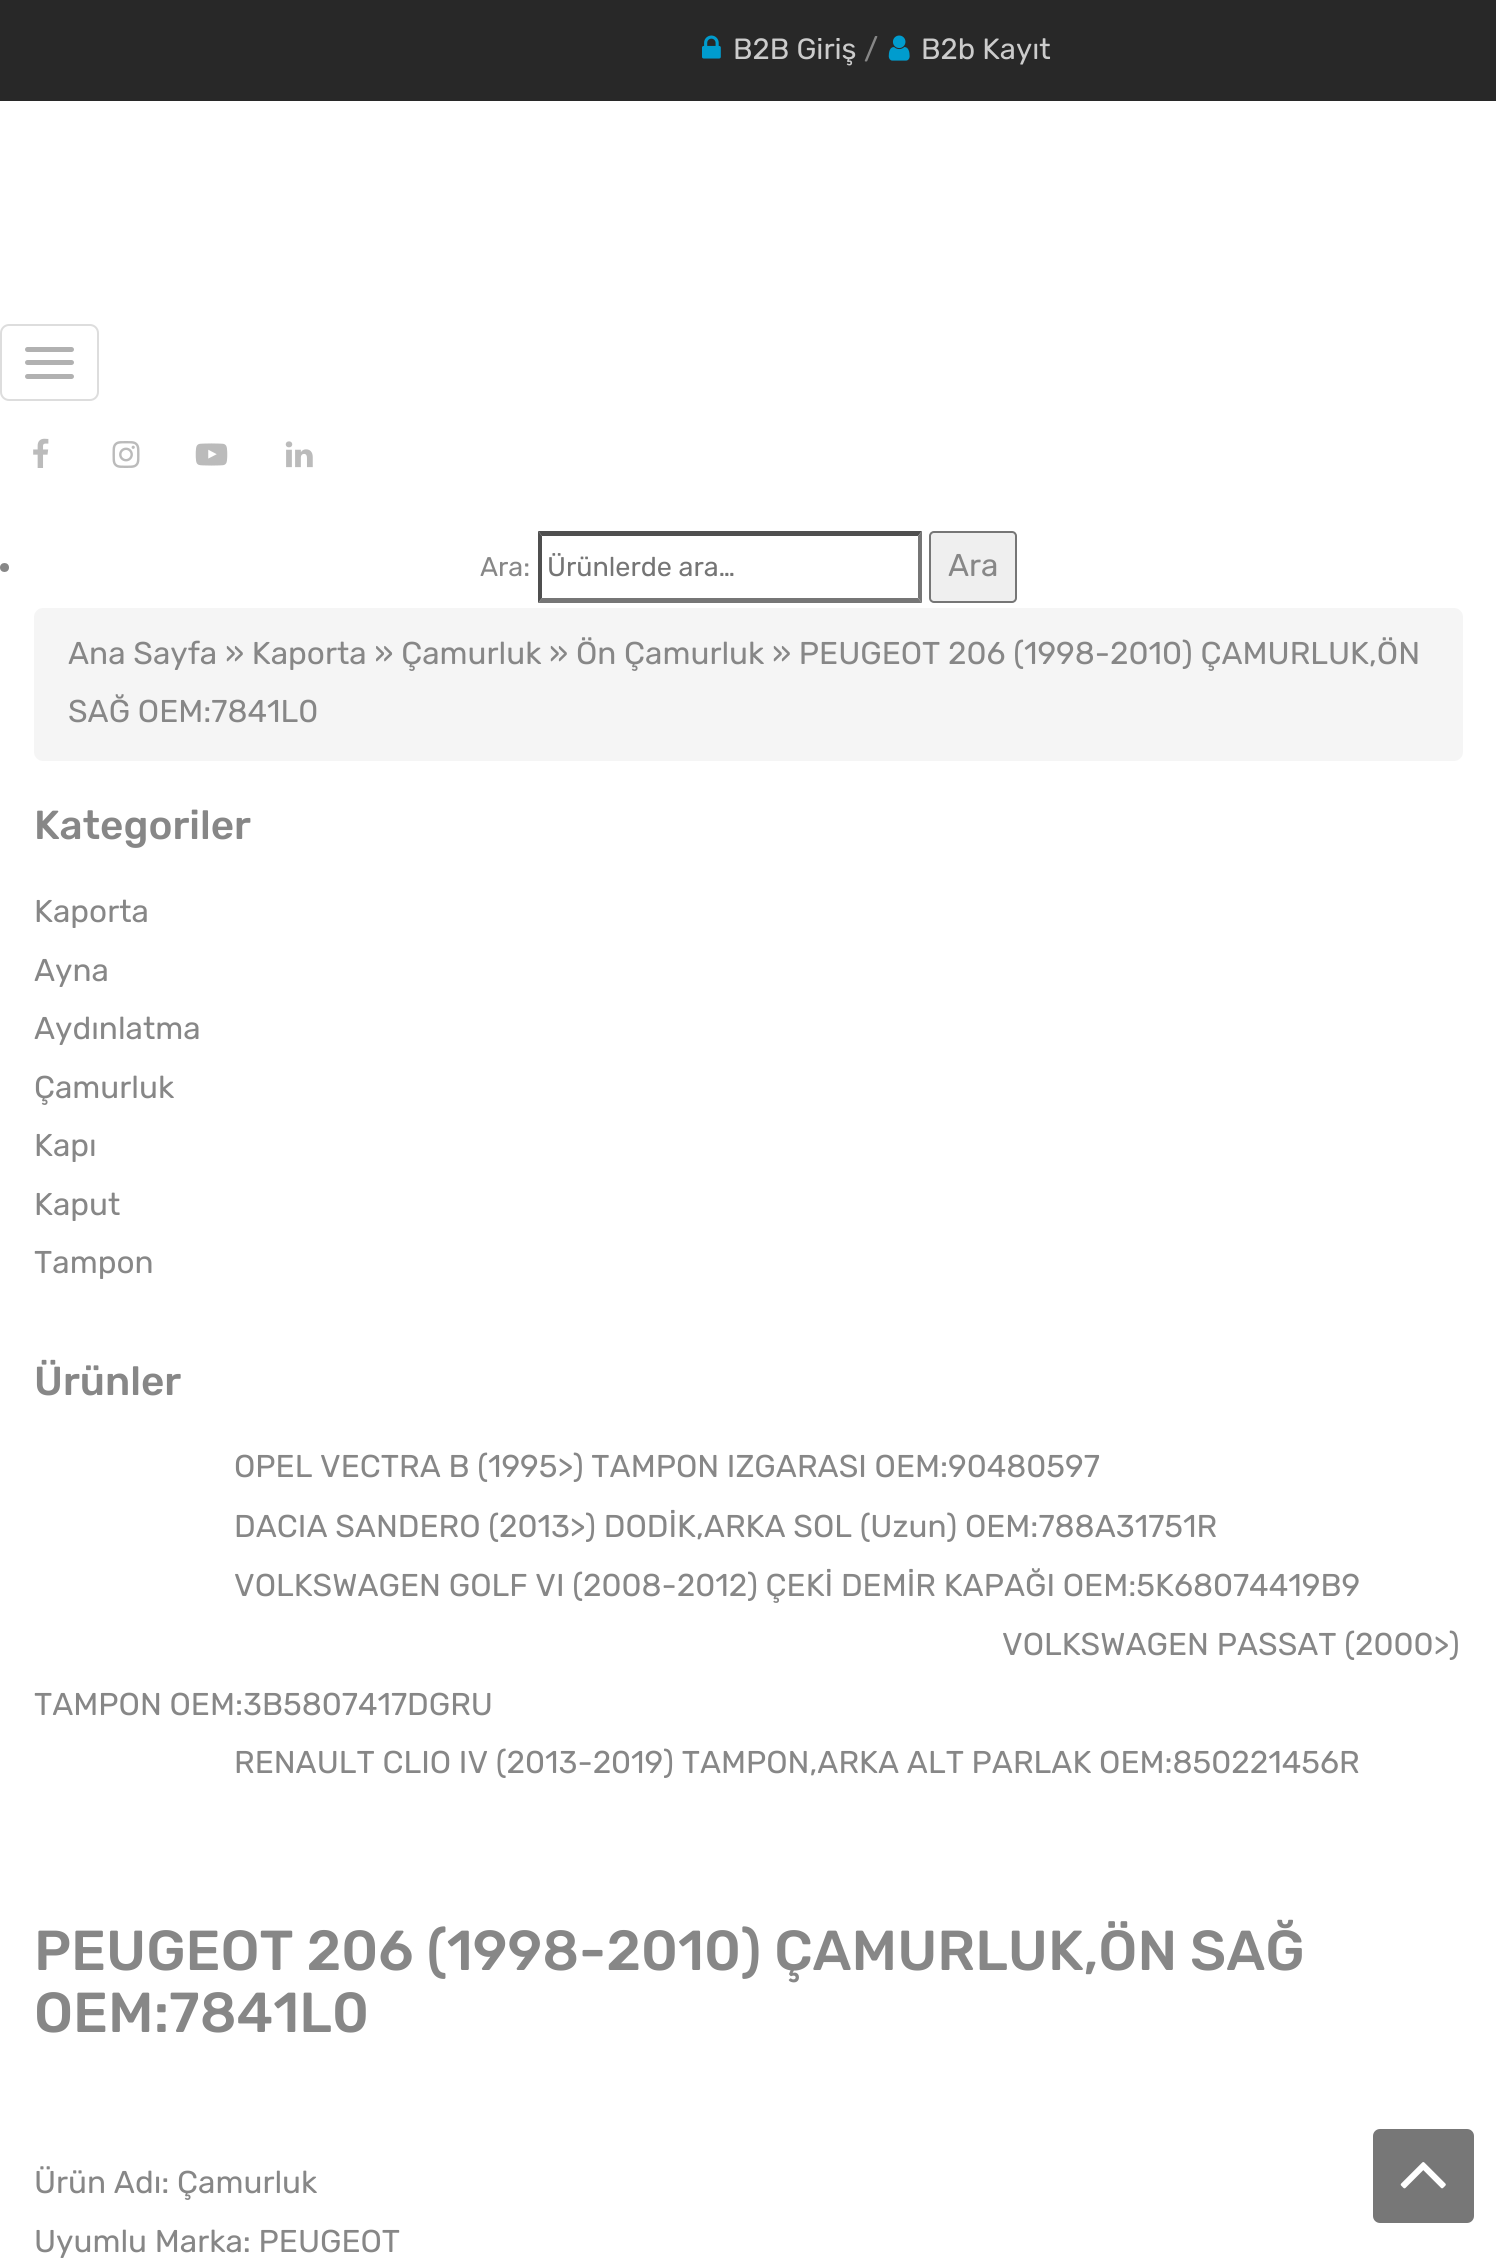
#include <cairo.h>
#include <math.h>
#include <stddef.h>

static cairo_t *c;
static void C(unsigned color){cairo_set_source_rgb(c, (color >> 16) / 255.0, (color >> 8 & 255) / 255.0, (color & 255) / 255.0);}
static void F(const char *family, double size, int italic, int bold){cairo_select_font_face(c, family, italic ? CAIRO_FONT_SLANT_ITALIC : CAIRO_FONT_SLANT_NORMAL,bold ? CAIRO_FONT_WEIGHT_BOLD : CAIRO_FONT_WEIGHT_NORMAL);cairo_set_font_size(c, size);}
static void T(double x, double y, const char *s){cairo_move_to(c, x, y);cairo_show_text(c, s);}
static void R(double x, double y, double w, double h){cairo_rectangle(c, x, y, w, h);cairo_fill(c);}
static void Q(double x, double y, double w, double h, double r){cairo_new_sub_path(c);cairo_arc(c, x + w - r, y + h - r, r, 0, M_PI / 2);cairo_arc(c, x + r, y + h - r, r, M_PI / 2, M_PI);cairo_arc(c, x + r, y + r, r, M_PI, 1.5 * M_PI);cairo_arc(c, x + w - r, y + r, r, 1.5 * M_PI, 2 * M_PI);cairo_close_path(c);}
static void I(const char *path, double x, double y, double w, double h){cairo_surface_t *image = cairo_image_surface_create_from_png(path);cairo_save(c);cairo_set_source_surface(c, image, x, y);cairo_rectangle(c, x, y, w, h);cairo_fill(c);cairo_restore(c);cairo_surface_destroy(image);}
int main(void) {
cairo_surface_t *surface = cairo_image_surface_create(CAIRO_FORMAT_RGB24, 1496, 2267);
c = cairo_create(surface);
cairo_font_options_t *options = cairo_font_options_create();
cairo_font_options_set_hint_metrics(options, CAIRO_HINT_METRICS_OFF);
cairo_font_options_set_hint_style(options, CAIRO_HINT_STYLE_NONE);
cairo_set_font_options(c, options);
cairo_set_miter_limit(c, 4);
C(0xffffff);
cairo_paint(c);
C(0x282828);
R(0,0,1496,101);
I("1.png",702,35,19,24);
F("Rubik",29.25,0,0);
C(0xcccccc);
T(733,59,"B2B Giriş");
C(0x878787);
T(864,59,"/");
I("2.png",888,35,22,26);
C(0xcccccc);
T(921,59,"B2b Kayıt");
Q(1,325,97,75,8);
C(0xdddddd);
cairo_stroke(c);
C(0xb1b1b1);
Q(25,347,49,5,2.5);
cairo_fill(c);
Q(25,360,49,5,2.5);
cairo_fill(c);
Q(25,374,49,5,2.5);
cairo_fill(c);
I("3.png",33,438,16,30);
I("4.png",112,441,28,27);
I("5.png",195,443,33,23);
I("6.png",285,441,28,27);
C(0x878787);
cairo_arc(c,4.5,567.5,4.5,0,2 * M_PI);
cairo_fill(c);
F("Rubik",27,0,0);
T(480,576,"Ara:");
C(0x4f4f4f);
cairo_new_path(c);
cairo_move_to(c,538,531);
cairo_line_to(c,922,531);
cairo_line_to(c,918,536);
cairo_line_to(c,542,536);
cairo_close_path(c);
cairo_fill(c);
C(0x767676);
cairo_new_path(c);
cairo_move_to(c,922,531);
cairo_line_to(c,922,603);
cairo_line_to(c,918,598);
cairo_line_to(c,918,536);
cairo_close_path(c);
cairo_fill(c);
cairo_new_path(c);
cairo_move_to(c,922,603);
cairo_line_to(c,538,603);
cairo_line_to(c,542,598);
cairo_line_to(c,918,598);
cairo_close_path(c);
cairo_fill(c);
C(0x4f4f4f);
cairo_new_path(c);
cairo_move_to(c,538,603);
cairo_line_to(c,538,531);
cairo_line_to(c,542,536);
cairo_line_to(c,542,598);
cairo_close_path(c);
cairo_fill(c);
C(0x757575);
T(547,576,"Ürünlerde ara…");
C(0xefefef);
Q(930,532,86,70,4);
cairo_fill_preserve(c);
C(0x767676);
cairo_stroke(c);
F("Rubik",31.5,0,0);
C(0x878787);
T(948,576,"Ara");
C(0xf5f5f5);
Q(34,608,1429,153,9);
cairo_fill(c);
C(0x878787);
T(68,664,"Ana Sayfa » Kaporta » Çamurluk » Ön Çamurluk » PEUGEOT 206 (1998-2010) ÇAMURLUK,ÖN");
T(68,722,"SAĞ OEM:7841L0");
F("Rubik Medium",40.5,0,0);
T(34,839,"Kategoriler");
F("Rubik",31.5,0,0);
T(34,922,"Kaporta");
T(34,981,"Ayna");
T(34,1039,"Aydınlatma");
T(34,1098,"Çamurluk");
T(34,1156,"Kapı");
T(34,1215,"Kaput");
T(34,1273,"Tampon");
F("Rubik Medium",40.5,0,0);
T(34,1395,"Ürünler");
F("Rubik",31.5,0,0);
T(234,1477,"OPEL VECTRA B (1995>) TAMPON IZGARASI OEM:90480597");
T(234,1537,"DACIA SANDERO (2013>) DODİK,ARKA SOL (Uzun) OEM:788A31751R");
T(234,1596,"VOLKSWAGEN GOLF VI (2008-2012) ÇEKİ DEMİR KAPAĞI OEM:5K68074419B9");
T(1002,1655,"VOLKSWAGEN PASSAT (2000>)");
T(34,1715,"TAMPON OEM:3B5807417DGRU");
T(234,1773,"RENAULT CLIO IV (2013-2019) TAMPON,ARKA ALT PARLAK OEM:850221456R");
F("Rubik Medium",56.25,0,0);
T(34,1970,"PEUGEOT 206 (1998-2010) ÇAMURLUK,ÖN SAĞ");
T(34,2032,"OEM:7841L0");
F("Rubik",31.5,0,0);
T(34,2193,"Ürün Adı: Çamurluk");
T(34,2252,"Uyumlu Marka: PEUGEOT");
C(0x777777);
Q(1373,2129,101,94,7);
cairo_fill(c);
I("7.png",1400,2162,46,27);
cairo_surface_write_to_png(surface, "o.png");
cairo_font_options_destroy(options);
cairo_destroy(c);
cairo_surface_destroy(surface);
return 0;
}
